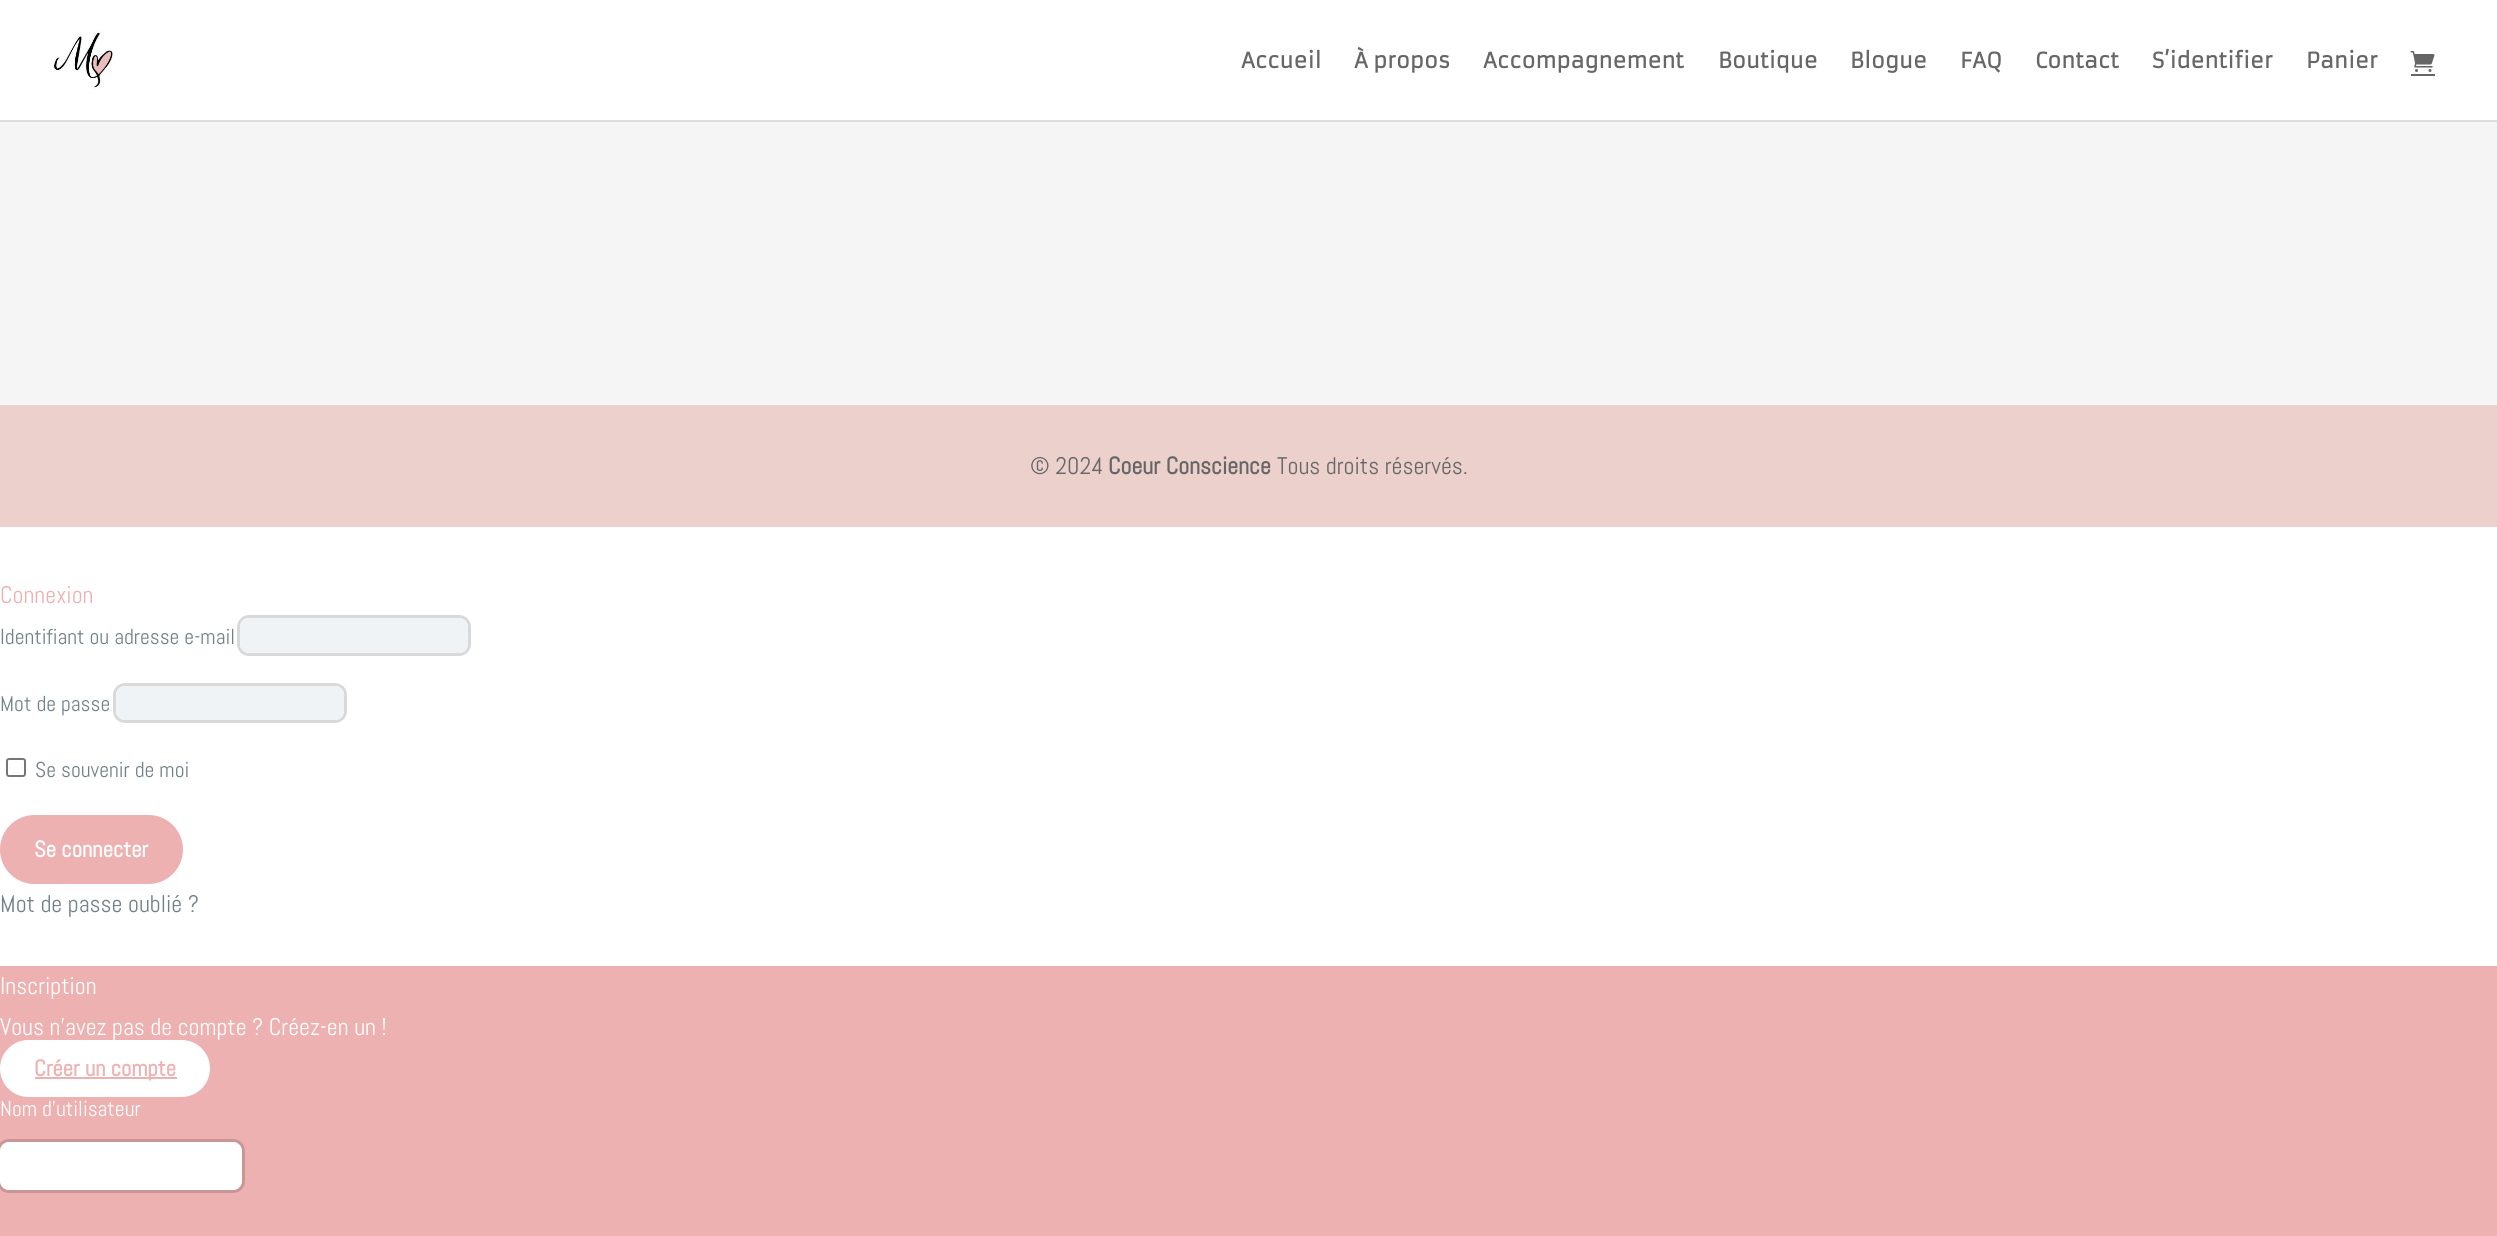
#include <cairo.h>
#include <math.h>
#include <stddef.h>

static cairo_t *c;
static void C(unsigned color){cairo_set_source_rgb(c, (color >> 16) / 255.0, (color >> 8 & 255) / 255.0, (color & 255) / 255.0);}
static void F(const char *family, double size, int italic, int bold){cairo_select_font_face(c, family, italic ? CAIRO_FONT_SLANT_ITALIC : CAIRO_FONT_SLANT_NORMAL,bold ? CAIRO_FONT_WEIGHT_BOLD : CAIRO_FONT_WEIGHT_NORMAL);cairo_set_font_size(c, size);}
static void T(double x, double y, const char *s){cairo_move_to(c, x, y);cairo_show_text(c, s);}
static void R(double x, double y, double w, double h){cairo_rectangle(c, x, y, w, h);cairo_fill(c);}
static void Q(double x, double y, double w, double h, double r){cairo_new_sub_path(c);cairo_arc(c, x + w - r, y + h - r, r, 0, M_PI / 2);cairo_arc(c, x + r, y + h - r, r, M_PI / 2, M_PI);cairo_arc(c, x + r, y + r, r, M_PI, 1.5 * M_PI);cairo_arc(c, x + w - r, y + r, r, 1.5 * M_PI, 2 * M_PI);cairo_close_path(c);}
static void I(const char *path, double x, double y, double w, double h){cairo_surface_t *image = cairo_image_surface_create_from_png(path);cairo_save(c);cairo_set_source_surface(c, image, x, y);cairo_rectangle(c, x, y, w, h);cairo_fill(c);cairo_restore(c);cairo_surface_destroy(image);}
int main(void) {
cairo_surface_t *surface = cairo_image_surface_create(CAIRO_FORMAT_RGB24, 2497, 1236);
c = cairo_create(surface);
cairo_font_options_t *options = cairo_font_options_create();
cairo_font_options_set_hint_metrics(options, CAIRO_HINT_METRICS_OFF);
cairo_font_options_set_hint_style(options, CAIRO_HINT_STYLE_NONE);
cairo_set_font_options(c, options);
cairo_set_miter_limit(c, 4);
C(0xffffff);
cairo_paint(c);
C(0xdddddd);
cairo_new_path(c);
cairo_move_to(c,0,120);
cairo_line_to(c,0,122);
cairo_line_to(c,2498,122);
cairo_line_to(c,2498,2);
cairo_line_to(c,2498,120);
cairo_close_path(c);
cairo_fill(c);
I("1.png",53,31,61,58);
F("Armata",21,0,1);
C(0x666666);
T(1241,68,"Accueil");
T(1354,68,"À propos");
T(1483,68,"Accompagnement");
T(1718,68,"Boutique");
T(1850,68,"Blogue");
T(1960,68,"FAQ");
T(2035,68,"Contact");
T(2152,68,"S’identifier");
T(2306,68,"Panier");
I("2.png",2410,51,25,21);
R(2411,74,24,2);
C(0xf5f5f5);
R(0,122,2497,283);
C(0xebd0cc);
R(0,405,2497,122);
F("Abel",24,0,0);
C(0x666666);
T(1030,474,"© 2024");
F("Abel",24,0,1);
T(1108,474,"Coeur Conscience");
F("Abel",24,0,0);
T(1277,474,"Tous droits réservés.");
C(0xedb1b1);
T(0,603,"Connexion");
F("Abel",21.6,0,0);
C(0x728188);
T(0,644,"Identifiant ou adresse e-mail");
Q(238.5,616.5,231,38,10.5);
C(0xd9d9d9);
cairo_set_line_width(c,3);
cairo_stroke(c);
C(0xf0f3f6);
Q(240,618,228,35,9);
cairo_fill(c);
C(0x728188);
T(0,711,"Mot de passe");
Q(114.5,684.5,231,37,10.5);
C(0xd9d9d9);
cairo_stroke(c);
C(0xf0f3f6);
Q(116,686,228,34,9);
cairo_fill(c);
Q(7,759,18,17,2);
C(0x767676);
cairo_set_line_width(c,2);
cairo_stroke(c);
C(0x728188);
T(35,777,"Se souvenir de moi");
C(0xedb1b1);
Q(0,815,183,69,34.5);
cairo_fill(c);
F("Abel",22.75,0,1);
C(0xffffff);
T(34,857,"Se connecter");
F("Abel",24,0,0);
C(0x728188);
T(0,912,"Mot de passe oublié ?");
C(0xedb1b1);
R(0,966,2497,270);
C(0xffffff);
T(0,994,"Inscription");
T(0,1035,"Vous n'avez pas de compte ? Créez-en un !");
Q(0,1040,210,57,28.5);
cairo_fill(c);
C(0xedb1b1);
R(35,1077,142,2);
F("Abel",22.75,0,1);
T(34,1076,"Créer un compte");
F("Abel",21.6,0,0);
C(0xffffff);
T(0,1116,"Nom d'utilisateur");
Q(-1.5,1140.5,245,51,10.5);
C(0xc99696);
cairo_set_line_width(c,3);
cairo_stroke(c);
C(0xffffff);
Q(0,1142,242,48,9);
cairo_fill(c);
cairo_surface_write_to_png(surface, "o.png");
cairo_font_options_destroy(options);
cairo_destroy(c);
cairo_surface_destroy(surface);
return 0;
}
